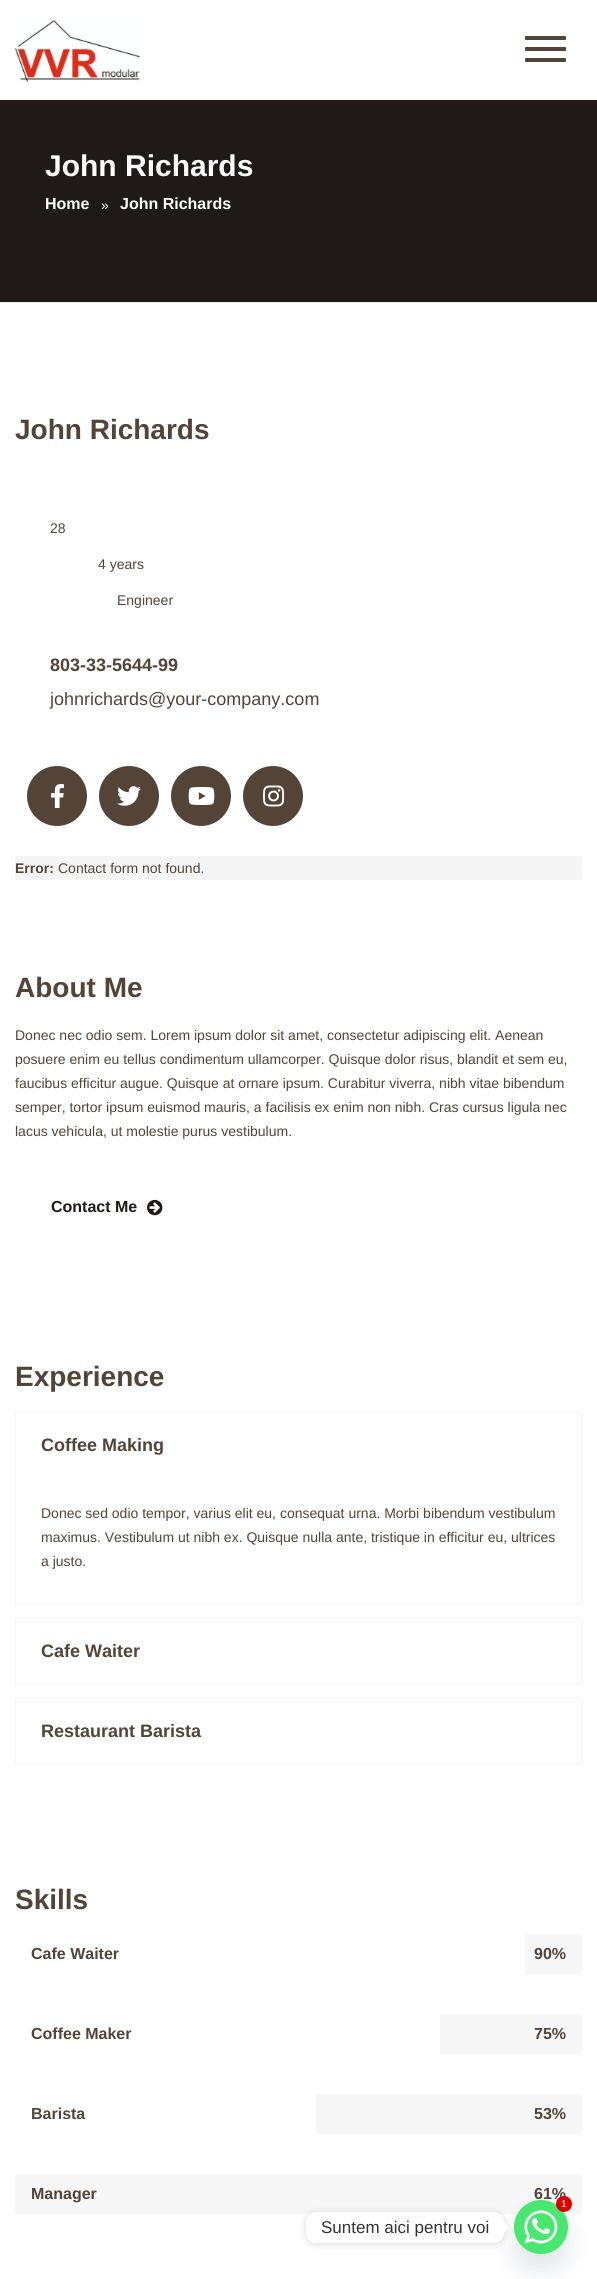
#include <cairo.h>
#include <math.h>
#include <stddef.h>

static cairo_t *c;
static void C(unsigned color){cairo_set_source_rgb(c, (color >> 16) / 255.0, (color >> 8 & 255) / 255.0, (color & 255) / 255.0);}
static void F(const char *family, double size, int italic, int bold){cairo_select_font_face(c, family, italic ? CAIRO_FONT_SLANT_ITALIC : CAIRO_FONT_SLANT_NORMAL,bold ? CAIRO_FONT_WEIGHT_BOLD : CAIRO_FONT_WEIGHT_NORMAL);cairo_set_font_size(c, size);}
static void T(double x, double y, const char *s){cairo_move_to(c, x, y);cairo_show_text(c, s);}
static void R(double x, double y, double w, double h){cairo_rectangle(c, x, y, w, h);cairo_fill(c);}
static void Q(double x, double y, double w, double h, double r){cairo_new_sub_path(c);cairo_arc(c, x + w - r, y + h - r, r, 0, M_PI / 2);cairo_arc(c, x + r, y + h - r, r, M_PI / 2, M_PI);cairo_arc(c, x + r, y + r, r, M_PI, 1.5 * M_PI);cairo_arc(c, x + w - r, y + r, r, 1.5 * M_PI, 2 * M_PI);cairo_close_path(c);}
static void S(double x, double y, double w, double h, double r, double blur, double alpha){cairo_push_group_with_content(c, CAIRO_CONTENT_ALPHA);cairo_set_operator(c, CAIRO_OPERATOR_SOURCE);for (int i = 15; i >= -15 && fmin(w, h) + blur * i / 3 > 0; i -= 2) {double e = blur * i / 6;cairo_set_source_rgba(c, 0, 0, 0, alpha * erfc((i - 1) / 8.5) / 2);Q(x - e, y - e, w + 2 * e, h + 2 * e, fmax(0, fmin(r + e + blur * .6, fmin(w, h) / 2 + e)));cairo_fill(c);}cairo_pattern_t *soft = cairo_pop_group(c);cairo_mask(c, soft);cairo_pattern_destroy(soft);}
static void I(const char *path, double x, double y, double w, double h){cairo_surface_t *image = cairo_image_surface_create_from_png(path);cairo_save(c);cairo_set_source_surface(c, image, x, y);cairo_rectangle(c, x, y, w, h);cairo_fill(c);cairo_restore(c);cairo_surface_destroy(image);}
int main(void) {
cairo_surface_t *surface = cairo_image_surface_create(CAIRO_FORMAT_RGB24, 597, 2279);
c = cairo_create(surface);
cairo_font_options_t *options = cairo_font_options_create();
cairo_font_options_set_hint_metrics(options, CAIRO_HINT_METRICS_OFF);
cairo_font_options_set_hint_style(options, CAIRO_HINT_STYLE_NONE);
cairo_set_font_options(c, options);
cairo_set_miter_limit(c, 4);
C(0xffffff);
cairo_paint(c);
I("1.png",15,20,125,62);
C(0x544438);
Q(525,36,41,4,1);
cairo_fill(c);
Q(525,47,41,4,1);
cairo_fill(c);
Q(525,58,41,4,1);
cairo_fill(c);
C(0x1f1a17);
R(0,100,597,202);
C(0xeeeeee);
R(0,302,597,1);
F("Liberation Sans",30,0,1);
C(0xffffff);
T(45,176,"John Richards");
F("Liberation Sans",16,0,1);
T(45,209,"Home");
F("Liberation Sans",14,0,0);
T(101,210,"»");
F("Liberation Sans",16,0,1);
T(120,209,"John Richards");
F("Liberation Sans",28,0,1);
C(0x544438);
T(15,439,"John Richards");
F("Liberation Sans",14,0,0);
T(50,533,"28");
T(98,569,"4 years");
T(117,605,"Engineer");
F("Liberation Sans",18,0,1);
T(50,671,"803-33-5644-99");
F("Liberation Sans",18,0,0);
T(50,705,"johnrichards@your-company.com");
cairo_new_path(c);
cairo_arc(c,57,796,30,0,2 * M_PI);
cairo_fill(c);
I("2.png",51,784,13,24);
cairo_arc(c,129,796,30,0,2 * M_PI);
cairo_fill(c);
I("3.png",117,786,24,20);
cairo_arc(c,201,796,30,0,2 * M_PI);
cairo_fill(c);
I("4.png",188,787,27,18);
cairo_arc(c,273,796,30,0,2 * M_PI);
cairo_fill(c);
I("5.png",263,785,22,22);
C(0xf6f5f5);
Q(15,856,567,24,2);
cairo_fill(c);
F("Liberation Sans",14,0,1);
C(0x544438);
T(15,873,"Error:");
F("Liberation Sans",14,0,0);
T(58,873,"Contact form not found.");
F("Liberation Sans",28,0,1);
T(15,997,"About Me");
F("Liberation Sans",14,0,0);
T(15,1040,"Donec nec odio sem. Lorem ipsum dolor sit amet, consectetur adipiscing elit. Aenean");
T(15,1064,"posuere enim eu tellus condimentum ullamcorper. Quisque dolor risus, blandit et sem eu,");
T(15,1088,"faucibus efficitur augue. Quisque at ornare ipsum. Curabitur viverra, nibh vitae bibendum");
T(15,1112,"semper, tortor ipsum euismod mauris, a facilisis ex enim non nibh. Cras cursus ligula nec");
T(15,1136,"lacus vehicula, ut molestie purus vestibulum.");
F("Liberation Sans",16,0,1);
C(0x1f1a17);
T(51,1212,"Contact Me");
I("6.png",147,1199,16,17);
F("Liberation Sans",28,0,1);
C(0x544438);
T(15,1386,"Experience");
C(0xf6f5f5);
R(16,1412,565,1);
R(581,1413,1,191);
R(15,1413,1,64);
F("Liberation Sans",18,0,1);
C(0x544438);
T(41,1451,"Coffee Making");
C(0xf6f5f5);
R(15,1603,567,1);
R(15,1476,1,128);
F("Liberation Sans",14,0,0);
C(0x544438);
T(41,1518,"Donec sed odio tempor, varius elit eu, consequat urna. Morbi bibendum vestibulum");
T(41,1542,"maximus. Vestibulum ut nibh ex. Quisque nulla ante, tristique in efficitur eu, ultrices");
T(41,1566,"a justo.");
cairo_rectangle(c,15.5,1618.5,566,65);
C(0xf6f5f5);
cairo_set_line_width(c,1);
cairo_stroke(c);
F("Liberation Sans",18,0,1);
C(0x544438);
T(41,1657,"Cafe Waiter");
cairo_new_path(c);
cairo_move_to(c,15.5,1698.5);
cairo_line_to(c,581.5,1698.5);
cairo_line_to(c,581.5,1762);
cairo_curve_to(c,581.5,1763,581,1763.5,580,1763.5);
cairo_line_to(c,17,1763.5);
cairo_curve_to(c,16,1763.5,15.5,1763,15.5,1762);
cairo_close_path(c);
C(0xf6f5f5);
cairo_stroke(c);
C(0x544438);
T(41,1737,"Restaurant Barista");
F("Liberation Sans",28,0,1);
T(15,1909,"Skills");
C(0xf7f7f7);
Q(15,1934,567,40,2);
cairo_fill(c);
C(0xffffff);
Q(15,1934,510,40,2);
cairo_fill(c);
F("Liberation Sans",16,0,1);
C(0x544438);
T(31,1959,"Cafe Waiter");
T(534,1959,"90%");
C(0xf7f7f7);
Q(15,2014,567,40,2);
cairo_fill(c);
C(0xffffff);
Q(15,2014,425,40,2);
cairo_fill(c);
C(0x544438);
T(31,2039,"Coffee Maker");
T(534,2039,"75%");
C(0xf7f7f7);
Q(15,2094,567,40,2);
cairo_fill(c);
C(0xffffff);
Q(15,2094,301,40,2);
cairo_fill(c);
C(0x544438);
T(31,2119,"Barista");
T(534,2119,"53%");
C(0xf7f7f7);
Q(15,2174,567,40,2);
cairo_fill(c);
C(0x544438);
T(31,2199,"Manager");
T(534,2199,"61%");
C(0x49687e);
S(514,2216,54,54,27,12,.16);
I("7.png",514,2200,54,54);
C(0xdd0000);
cairo_arc(c,564,2204,8,0,2 * M_PI);
cairo_fill(c);
F("Liberation Sans",10,0,0);
C(0xffffff);
T(561,2207,"1");
C(0x000000);
S(306,2213,198,31,10,4,.15);
C(0xffffff);
Q(306,2212,198,31,10);
cairo_fill(c);
F("Liberation Sans",17,0,0);
C(0x333333);
T(321,2233,"Suntem aici pentru voi");
C(0xffffff);
cairo_new_path(c);
cairo_move_to(c,504,2232.5);
cairo_line_to(c,504,2222.5);
cairo_line_to(c,509,2227.5);
cairo_close_path(c);
cairo_fill(c);
cairo_surface_write_to_png(surface, "o.png");
cairo_font_options_destroy(options);
cairo_destroy(c);
cairo_surface_destroy(surface);
return 0;
}
